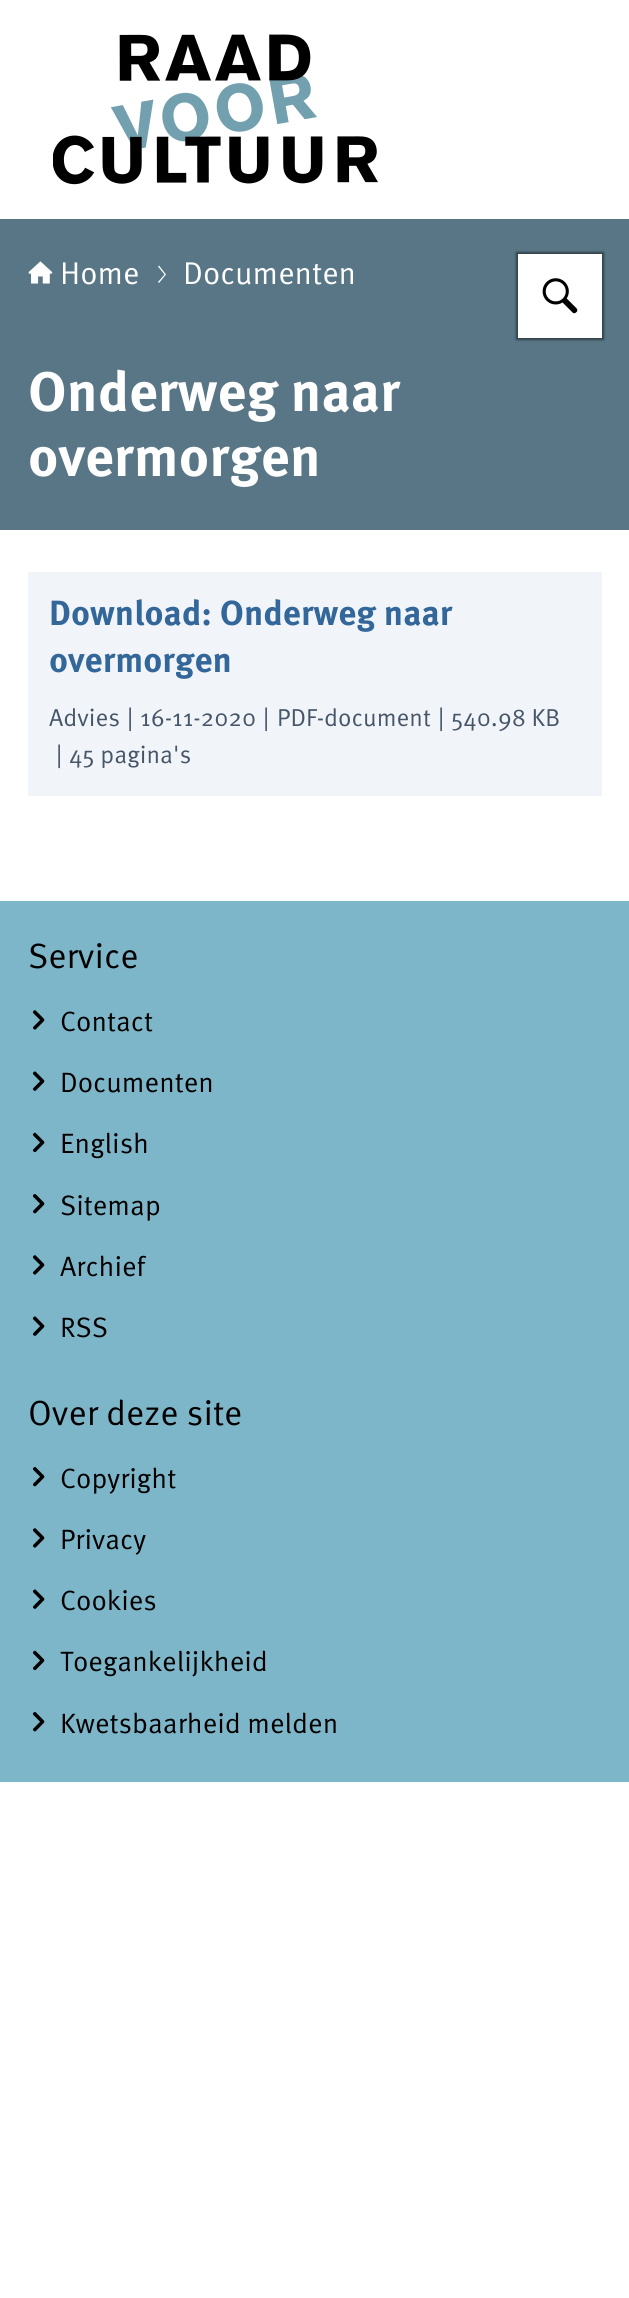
#include <cairo.h>
#include <math.h>
#include <stddef.h>

static cairo_t *c;
static void C(unsigned color){cairo_set_source_rgb(c, (color >> 16) / 255.0, (color >> 8 & 255) / 255.0, (color & 255) / 255.0);}
static void F(const char *family, double size, int italic, int bold){cairo_select_font_face(c, family, italic ? CAIRO_FONT_SLANT_ITALIC : CAIRO_FONT_SLANT_NORMAL,bold ? CAIRO_FONT_WEIGHT_BOLD : CAIRO_FONT_WEIGHT_NORMAL);cairo_set_font_size(c, size);}
static void T(double x, double y, const char *s){cairo_move_to(c, x, y);cairo_show_text(c, s);}
static void R(double x, double y, double w, double h){cairo_rectangle(c, x, y, w, h);cairo_fill(c);}
static void Q(double x, double y, double w, double h, double r){cairo_new_sub_path(c);cairo_arc(c, x + w - r, y + h - r, r, 0, M_PI / 2);cairo_arc(c, x + r, y + h - r, r, M_PI / 2, M_PI);cairo_arc(c, x + r, y + r, r, M_PI, 1.5 * M_PI);cairo_arc(c, x + w - r, y + r, r, 1.5 * M_PI, 2 * M_PI);cairo_close_path(c);}
static void S(double x, double y, double w, double h, double r, double blur, double alpha){cairo_push_group_with_content(c, CAIRO_CONTENT_ALPHA);cairo_set_operator(c, CAIRO_OPERATOR_SOURCE);for (int i = 15; i >= -15 && fmin(w, h) + blur * i / 3 > 0; i -= 2) {double e = blur * i / 6;cairo_set_source_rgba(c, 0, 0, 0, alpha * erfc((i - 1) / 8.5) / 2);Q(x - e, y - e, w + 2 * e, h + 2 * e, fmax(0, fmin(r + e + blur * .6, fmin(w, h) / 2 + e)));cairo_fill(c);}cairo_pattern_t *soft = cairo_pop_group(c);cairo_mask(c, soft);cairo_pattern_destroy(soft);}
static void I(const char *path, double x, double y, double w, double h){cairo_surface_t *image = cairo_image_surface_create_from_png(path);cairo_save(c);cairo_set_source_surface(c, image, x, y);cairo_rectangle(c, x, y, w, h);cairo_fill(c);cairo_restore(c);cairo_surface_destroy(image);}
int main(void) {
cairo_surface_t *surface = cairo_image_surface_create(CAIRO_FORMAT_RGB24, 629, 2298);
c = cairo_create(surface);
cairo_font_options_t *options = cairo_font_options_create();
cairo_font_options_set_hint_metrics(options, CAIRO_HINT_METRICS_OFF);
cairo_font_options_set_hint_style(options, CAIRO_HINT_STYLE_NONE);
cairo_set_font_options(c, options);
cairo_set_miter_limit(c, 4);
C(0xffffff);
cairo_paint(c);
I("1.png",53,34,325,151);
C(0x597686);
R(0,219,629,311);
I("2.png",28,261,25,23);
F("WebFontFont",31.5,0,0);
C(0xffffff);
T(60,284,"Home");
cairo_new_path(c);
cairo_move_to(c,159,283);
cairo_line_to(c,158,282);
cairo_line_to(c,164.5,274.5);
cairo_line_to(c,158,266.5);
cairo_line_to(c,159,265.5);
cairo_line_to(c,166,274.5);
cairo_close_path(c);
cairo_fill(c);
T(183,284,"Documenten");
C(0x000000);
S(516,252,88,88,0,1,.44);
C(0xffffff);
R(518,254,84,84);
I("3.png",542,278,36,36);
F("WebFontFont",56,0,1);
T(28,411,"Onderweg naar");
T(28,476,"overmorgen");
C(0xf1f5f9);
R(28,572,574,224);
F("WebFontFont",35,0,1);
C(0x336699);
T(49,625,"Download: Onderweg naar");
T(49,672,"overmorgen");
F("WebFontFont",24.5,0,0);
C(0x475569);
T(49,726,"Advies");
T(127,726,"|");
T(140,726,"16-11-2020");
T(263,726,"|");
T(277,726,"PDF-document");
T(438,726,"|");
T(451,726,"540.98 KB");
T(56,763,"|");
T(69,763,"45 pagina's");
C(0x7eb6c9);
R(0,901,629,881);
F("WebFontFont",35,0,0);
C(0x000000);
T(28,968,"Service");
I("4.png",32,1010,13,20);
F("WebFontFont",28,0,0);
T(60,1031,"Contact");
I("5.png",32,1071,13,20);
T(60,1092,"Documenten");
I("6.png",32,1132,13,21);
T(60,1153,"English");
I("7.png",32,1194,13,20);
T(60,1215,"Sitemap");
I("4.png",32,1255,13,20);
T(60,1276,"Archief");
I("5.png",32,1316,13,20);
T(60,1337,"RSS");
F("WebFontFont",35,0,0);
T(28,1425,"Over deze site");
I("7.png",32,1467,13,20);
F("WebFontFont",28,0,0);
T(60,1488,"Copyright");
I("4.png",32,1528,13,20);
T(60,1549,"Privacy");
I("5.png",32,1589,13,20);
T(60,1610,"Cookies");
I("6.png",32,1650,13,21);
T(60,1671,"Toegankelijkheid");
I("7.png",32,1712,13,20);
T(60,1733,"Kwetsbaarheid melden");
cairo_surface_write_to_png(surface, "o.png");
cairo_font_options_destroy(options);
cairo_destroy(c);
cairo_surface_destroy(surface);
return 0;
}
